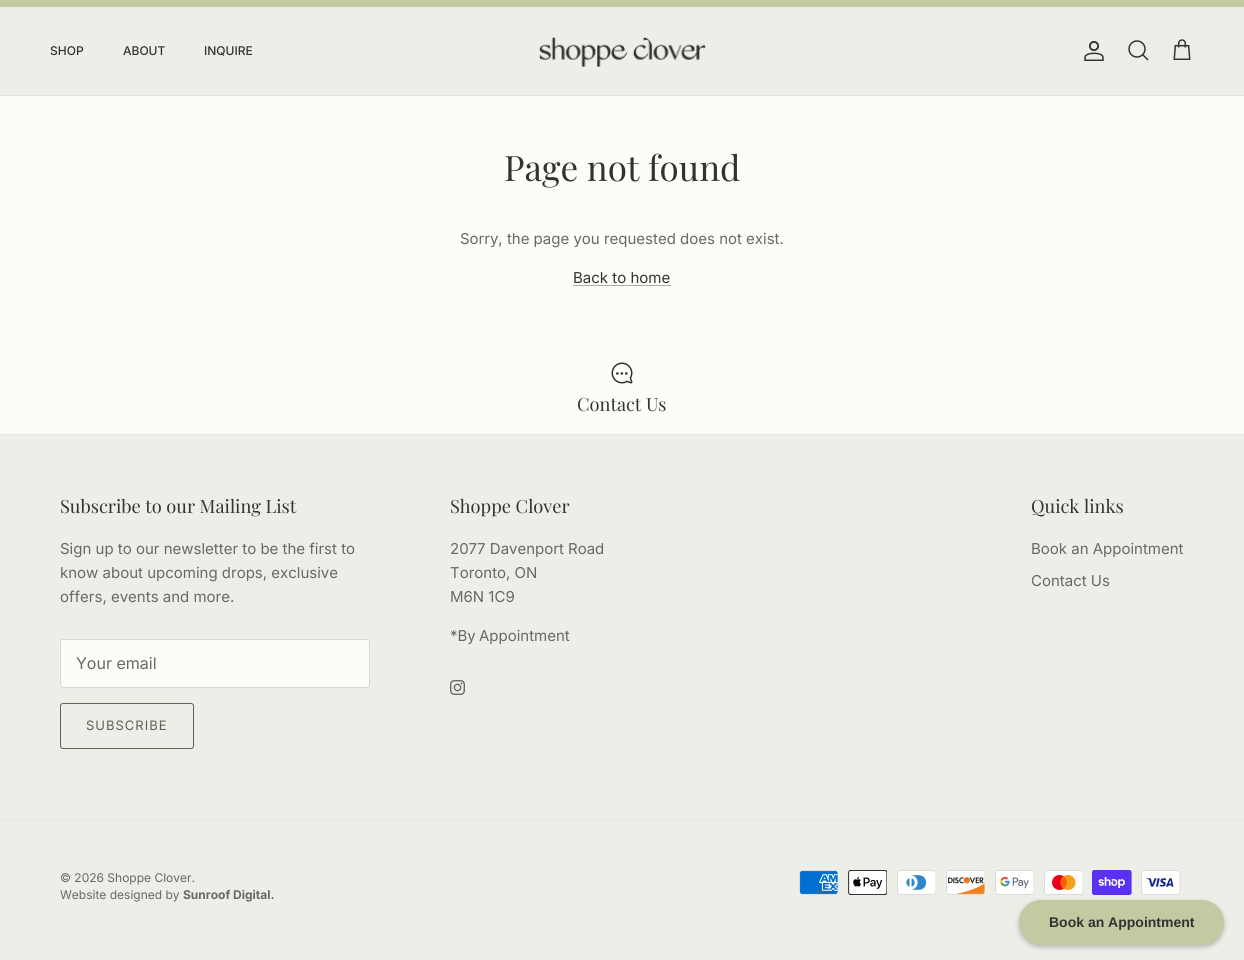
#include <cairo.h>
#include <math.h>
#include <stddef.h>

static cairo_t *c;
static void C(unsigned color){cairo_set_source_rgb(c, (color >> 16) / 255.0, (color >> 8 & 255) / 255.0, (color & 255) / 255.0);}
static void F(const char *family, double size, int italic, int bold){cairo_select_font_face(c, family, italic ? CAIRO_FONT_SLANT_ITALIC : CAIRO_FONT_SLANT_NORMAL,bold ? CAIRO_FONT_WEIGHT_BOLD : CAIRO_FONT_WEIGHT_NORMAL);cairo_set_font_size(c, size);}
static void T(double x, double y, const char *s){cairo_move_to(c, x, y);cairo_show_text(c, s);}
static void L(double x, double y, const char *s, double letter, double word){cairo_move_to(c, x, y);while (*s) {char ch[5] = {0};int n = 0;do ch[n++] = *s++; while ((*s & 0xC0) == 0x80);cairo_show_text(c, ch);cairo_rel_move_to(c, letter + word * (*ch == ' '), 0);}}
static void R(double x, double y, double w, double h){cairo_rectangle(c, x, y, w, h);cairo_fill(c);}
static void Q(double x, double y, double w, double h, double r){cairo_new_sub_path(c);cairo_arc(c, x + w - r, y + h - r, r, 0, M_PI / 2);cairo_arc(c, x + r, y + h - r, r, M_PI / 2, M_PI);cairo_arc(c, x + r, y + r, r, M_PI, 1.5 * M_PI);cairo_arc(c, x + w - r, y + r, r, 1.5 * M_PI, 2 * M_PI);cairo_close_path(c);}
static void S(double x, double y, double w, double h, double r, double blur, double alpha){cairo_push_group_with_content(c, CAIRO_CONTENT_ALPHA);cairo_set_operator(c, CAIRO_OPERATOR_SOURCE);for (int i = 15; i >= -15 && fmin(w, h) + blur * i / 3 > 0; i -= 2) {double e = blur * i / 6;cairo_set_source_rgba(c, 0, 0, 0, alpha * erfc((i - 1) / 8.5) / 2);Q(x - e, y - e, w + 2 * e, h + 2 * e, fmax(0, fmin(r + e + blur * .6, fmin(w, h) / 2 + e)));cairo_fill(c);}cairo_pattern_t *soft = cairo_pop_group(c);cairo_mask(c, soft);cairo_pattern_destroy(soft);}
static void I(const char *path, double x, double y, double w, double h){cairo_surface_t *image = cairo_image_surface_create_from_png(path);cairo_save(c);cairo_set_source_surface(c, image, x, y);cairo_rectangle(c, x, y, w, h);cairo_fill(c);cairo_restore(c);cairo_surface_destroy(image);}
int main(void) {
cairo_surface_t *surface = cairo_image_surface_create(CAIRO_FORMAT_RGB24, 1244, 960);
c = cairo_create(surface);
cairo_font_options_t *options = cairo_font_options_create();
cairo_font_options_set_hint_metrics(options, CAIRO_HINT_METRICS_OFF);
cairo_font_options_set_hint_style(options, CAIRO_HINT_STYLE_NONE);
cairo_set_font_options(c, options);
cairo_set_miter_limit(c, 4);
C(0xfcfcf9);
cairo_paint(c);
C(0xc5caa3);
R(0,0,1244,7);
C(0xedeee8);
R(0,7,1244,88);
C(0xe2e2e2);
R(0,95,1244,1);
F("Inter Medium",12,0,0);
C(0x333333);
T(50,55,"SHOP");
T(123,55,"ABOUT");
T(204,55,"INQUIRE");
I("1.png",539,37,167,30);
I("2.png",1084,41,20,20);
cairo_arc(c,1137,49,8,0,2 * M_PI);
cairo_set_line_width(c,1.5);
cairo_stroke(c);
cairo_new_path(c);
cairo_move_to(c,1143,55);
cairo_line_to(c,1147.5,59.5);
cairo_set_line_cap(c,CAIRO_LINE_CAP_SQUARE);
cairo_stroke(c);
I("3.png",1173,39,18,21);
F("Playfair Display",35,0,0);
T(504,181,"Page not found");
F("Inter",15,0,0);
C(0x676869);
T(460,244,"Sorry, the page you requested does not exist.");
C(0x333333);
T(573,283,"Back to home");
C(0xacacaa);
R(573,285,98,1);
I("4.png",611,362,22,22);
F("Playfair Display",18.25,0,0);
C(0x333333);
T(577,411,"Contact Us");
C(0xedeee8);
R(0,435,1244,525);
C(0xe4e4e4);
R(0,434,1244,1);
C(0x333333);
T(60,513,"Subscribe to our Mailing List");
F("Inter",15,0,0);
C(0x676869);
T(60,554,"Sign up to our newsletter to be the first to");
T(60,578,"know about upcoming drops, exclusive");
T(60,602,"offers, events and more.");
C(0xfcfcf9);
Q(60.5,639.5,309,48,2.5);
cairo_fill_preserve(c);
C(0xd7d7d5);
cairo_set_line_width(c,1);
cairo_set_line_cap(c,CAIRO_LINE_CAP_BUTT);
cairo_stroke(c);
F("Inter",16,0,0);
C(0x676869);
T(76,669,"Your email");
Q(60.5,703.5,133,45,2.5);
C(0x616256);
cairo_stroke(c);
F("Inter",13,0,0);
L(86,730,"SUBSCRIBE",1,0);
F("Playfair Display",18.25,0,0);
C(0x333333);
T(450,513,"Shoppe Clover");
F("Inter",15,0,0);
C(0x676869);
T(450,554,"2077 Davenport Road");
T(450,578,"Toronto, ON");
T(450,602,"M6N 1C9");
L(450,641,"*By Appointment",0,-1);
I("5.png",450,680,15,15);
F("Playfair Display",18.25,0,0);
C(0x333333);
T(1031,513,"Quick links");
F("Inter",15,0,0);
C(0x676869);
T(1031,554,"Book an Appointment");
T(1031,586,"Contact Us");
C(0xe4e4e4);
R(0,819,1244,1);
F("Inter",12,0,0);
C(0x676869);
T(60,882,"© 2026 Shoppe Clover.");
T(60,899,"Website designed by");
F("Inter",12,0,1);
T(183,899,"Sunroof Digital.");
I("6.png",799,870,39,25);
I("7.png",848,870,39,25);
I("8.png",897,870,39,25);
I("9.png",946,870,39,25);
I("10.png",995,870,39,25);
I("11.png",1044,870,39,25);
I("12.png",1092,870,40,25);
I("13.png",1141,870,40,25);
C(0x000000);
S(1019,902,205,45,22.5,2.5,.25);
C(0xc4c9a2);
Q(1019,900,205,45,22.5);
cairo_fill(c);
F("Liberation Sans",14,0,1);
C(0x333333);
T(1049,927,"Book an Appointment");
cairo_surface_write_to_png(surface, "o.png");
cairo_font_options_destroy(options);
cairo_destroy(c);
cairo_surface_destroy(surface);
return 0;
}
